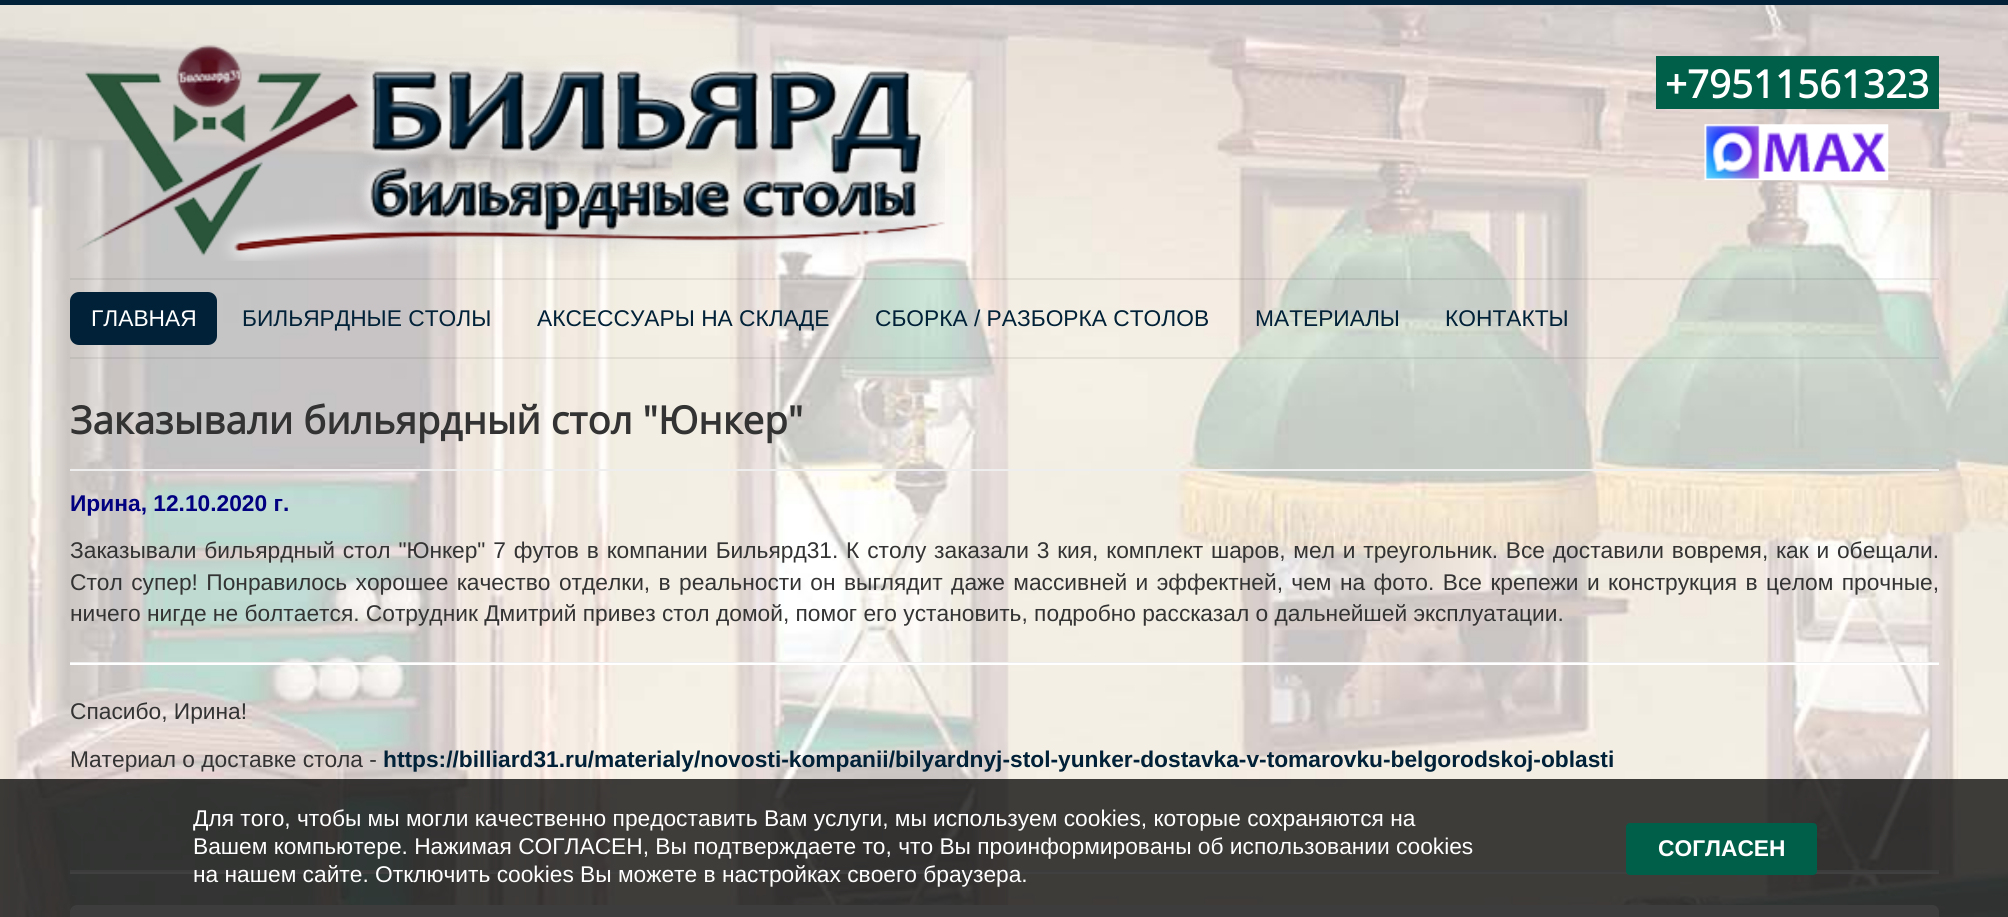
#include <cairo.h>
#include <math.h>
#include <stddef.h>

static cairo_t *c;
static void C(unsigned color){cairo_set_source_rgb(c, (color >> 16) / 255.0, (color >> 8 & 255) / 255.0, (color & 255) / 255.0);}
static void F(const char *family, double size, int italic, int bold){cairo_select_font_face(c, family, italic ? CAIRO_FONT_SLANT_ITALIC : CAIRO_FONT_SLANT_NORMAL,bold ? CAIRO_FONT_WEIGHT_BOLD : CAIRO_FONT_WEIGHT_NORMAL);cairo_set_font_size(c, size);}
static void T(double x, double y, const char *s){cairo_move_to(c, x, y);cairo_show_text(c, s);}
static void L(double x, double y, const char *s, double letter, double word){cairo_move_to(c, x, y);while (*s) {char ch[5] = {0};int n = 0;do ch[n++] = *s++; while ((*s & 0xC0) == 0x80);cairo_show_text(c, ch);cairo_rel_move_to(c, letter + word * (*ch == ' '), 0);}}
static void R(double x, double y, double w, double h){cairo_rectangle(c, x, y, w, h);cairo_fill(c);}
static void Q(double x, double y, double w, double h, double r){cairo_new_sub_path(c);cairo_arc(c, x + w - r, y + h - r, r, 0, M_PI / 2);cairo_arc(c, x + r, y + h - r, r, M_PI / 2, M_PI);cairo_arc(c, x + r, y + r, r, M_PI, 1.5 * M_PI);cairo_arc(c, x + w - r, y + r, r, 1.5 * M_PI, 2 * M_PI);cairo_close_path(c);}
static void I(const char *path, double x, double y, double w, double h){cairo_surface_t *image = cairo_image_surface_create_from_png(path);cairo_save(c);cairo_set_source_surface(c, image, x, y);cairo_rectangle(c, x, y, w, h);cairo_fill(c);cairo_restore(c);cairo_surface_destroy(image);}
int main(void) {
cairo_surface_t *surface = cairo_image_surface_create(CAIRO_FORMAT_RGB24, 2008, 917);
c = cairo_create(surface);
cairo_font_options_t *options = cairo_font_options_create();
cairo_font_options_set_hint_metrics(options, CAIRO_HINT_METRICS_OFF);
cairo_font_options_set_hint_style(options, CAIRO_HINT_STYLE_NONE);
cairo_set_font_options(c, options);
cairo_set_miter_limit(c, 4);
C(0xffffff);
cairo_paint(c);
I("1.png",0,5,2008,912);
C(0x002137);
R(0,0,2008,5);
I("2.png",76,45,869,216);
C(0x005f48);
R(1656,56,283,53);
F("Open Sans",38.5,0,1);
C(0xffffff);
T(1665,98,"+79511561323");
I("3.png",1704,124,185,57);
cairo_set_source_rgba(c,0,0,0,0.07);
R(70,278,1869,2);
R(70,357,1869,2);
C(0x002137);
Q(70,292,147,53,9);
cairo_fill(c);
F("Liberation Sans",22.75,0,0);
C(0xffffff);
T(91,326,"ГЛАВНАЯ");
C(0x002137);
T(242,326,"БИЛЬЯРДНЫЕ СТОЛЫ");
T(537,326,"АКСЕССУАРЫ НА СКЛАДЕ");
T(875,326,"СБОРКА / РАЗБОРКА СТОЛОВ");
T(1255,326,"МАТЕРИАЛЫ");
T(1445,326,"КОНТАКТЫ");
C(0xeeeeee);
R(70,469,1869,2);
F("Open Sans",38.5,0,1);
C(0x333333);
T(70,434,"Заказывали бильярдный стол \"Юнкер\"");
F("Liberation Sans",22.75,0,1);
C(0x000080);
T(70,511,"Ирина, 12.10.2020 г.");
F("Liberation Sans",22.75,0,0);
C(0x333333);
L(70,558,"Заказывали бильярдный стол \"Юнкер\" 7 футов в компании Бильярд31. К столу заказали 3 кия, комплект шаров, мел и треугольник. Все доставили вовремя, как и обещали.",0,1.5);
L(70,590,"Стол супер! Понравилось хорошее качество отделки, в реальности он выглядит даже массивней и эффектней, чем на фото. Все крепежи и конструкция в целом прочные,",0,2.1);
T(70,621,"ничего нигде не болтается. Сотрудник Дмитрий привез стол домой, помог его установить, подробно рассказал о дальнейшей эксплуатации.");
C(0xeeeeee);
R(70,662,1869,1);
C(0xffffff);
R(70,663,1869,2);
C(0x333333);
T(70,719,"Спасибо, Ирина!");
T(70,767,"Материал о доставке стола -");
F("Liberation Sans",22.75,0,1);
C(0x002137);
T(383,767,"https://billiard31.ru/materialy/novosti-kompanii/bilyardnyj-stol-yunker-dostavka-v-tomarovku-belgorodskoj-oblasti");
C(0xeeeeee);
R(70,870,1869,2);
C(0xffffff);
R(70,872,1869,2);
C(0xf5f5f5);
Q(70,905,1869,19,7);
cairo_fill(c);
cairo_set_source_rgba(c,0,0,0,0.75);
R(0,779,2008,138);
F("Liberation Sans",22.75,0,0);
C(0xffffff);
T(193,826,"Для того, чтобы мы могли качественно предоставить Вам услуги, мы используем cookies, которые сохраняются на");
T(193,854,"Вашем компьютере. Нажимая СОГЛАСЕН, Вы подтверждаете то, что Вы проинформированы об использовании cookies");
T(193,882,"на нашем сайте. Отключить cookies Вы можете в настройках своего браузера.");
C(0x005f48);
Q(1626,823,191,52,4);
cairo_fill(c);
F("Liberation Sans",22.75,0,1);
C(0xffffff);
T(1658,856,"СОГЛАСЕН");
cairo_surface_write_to_png(surface, "o.png");
cairo_font_options_destroy(options);
cairo_destroy(c);
cairo_surface_destroy(surface);
return 0;
}
